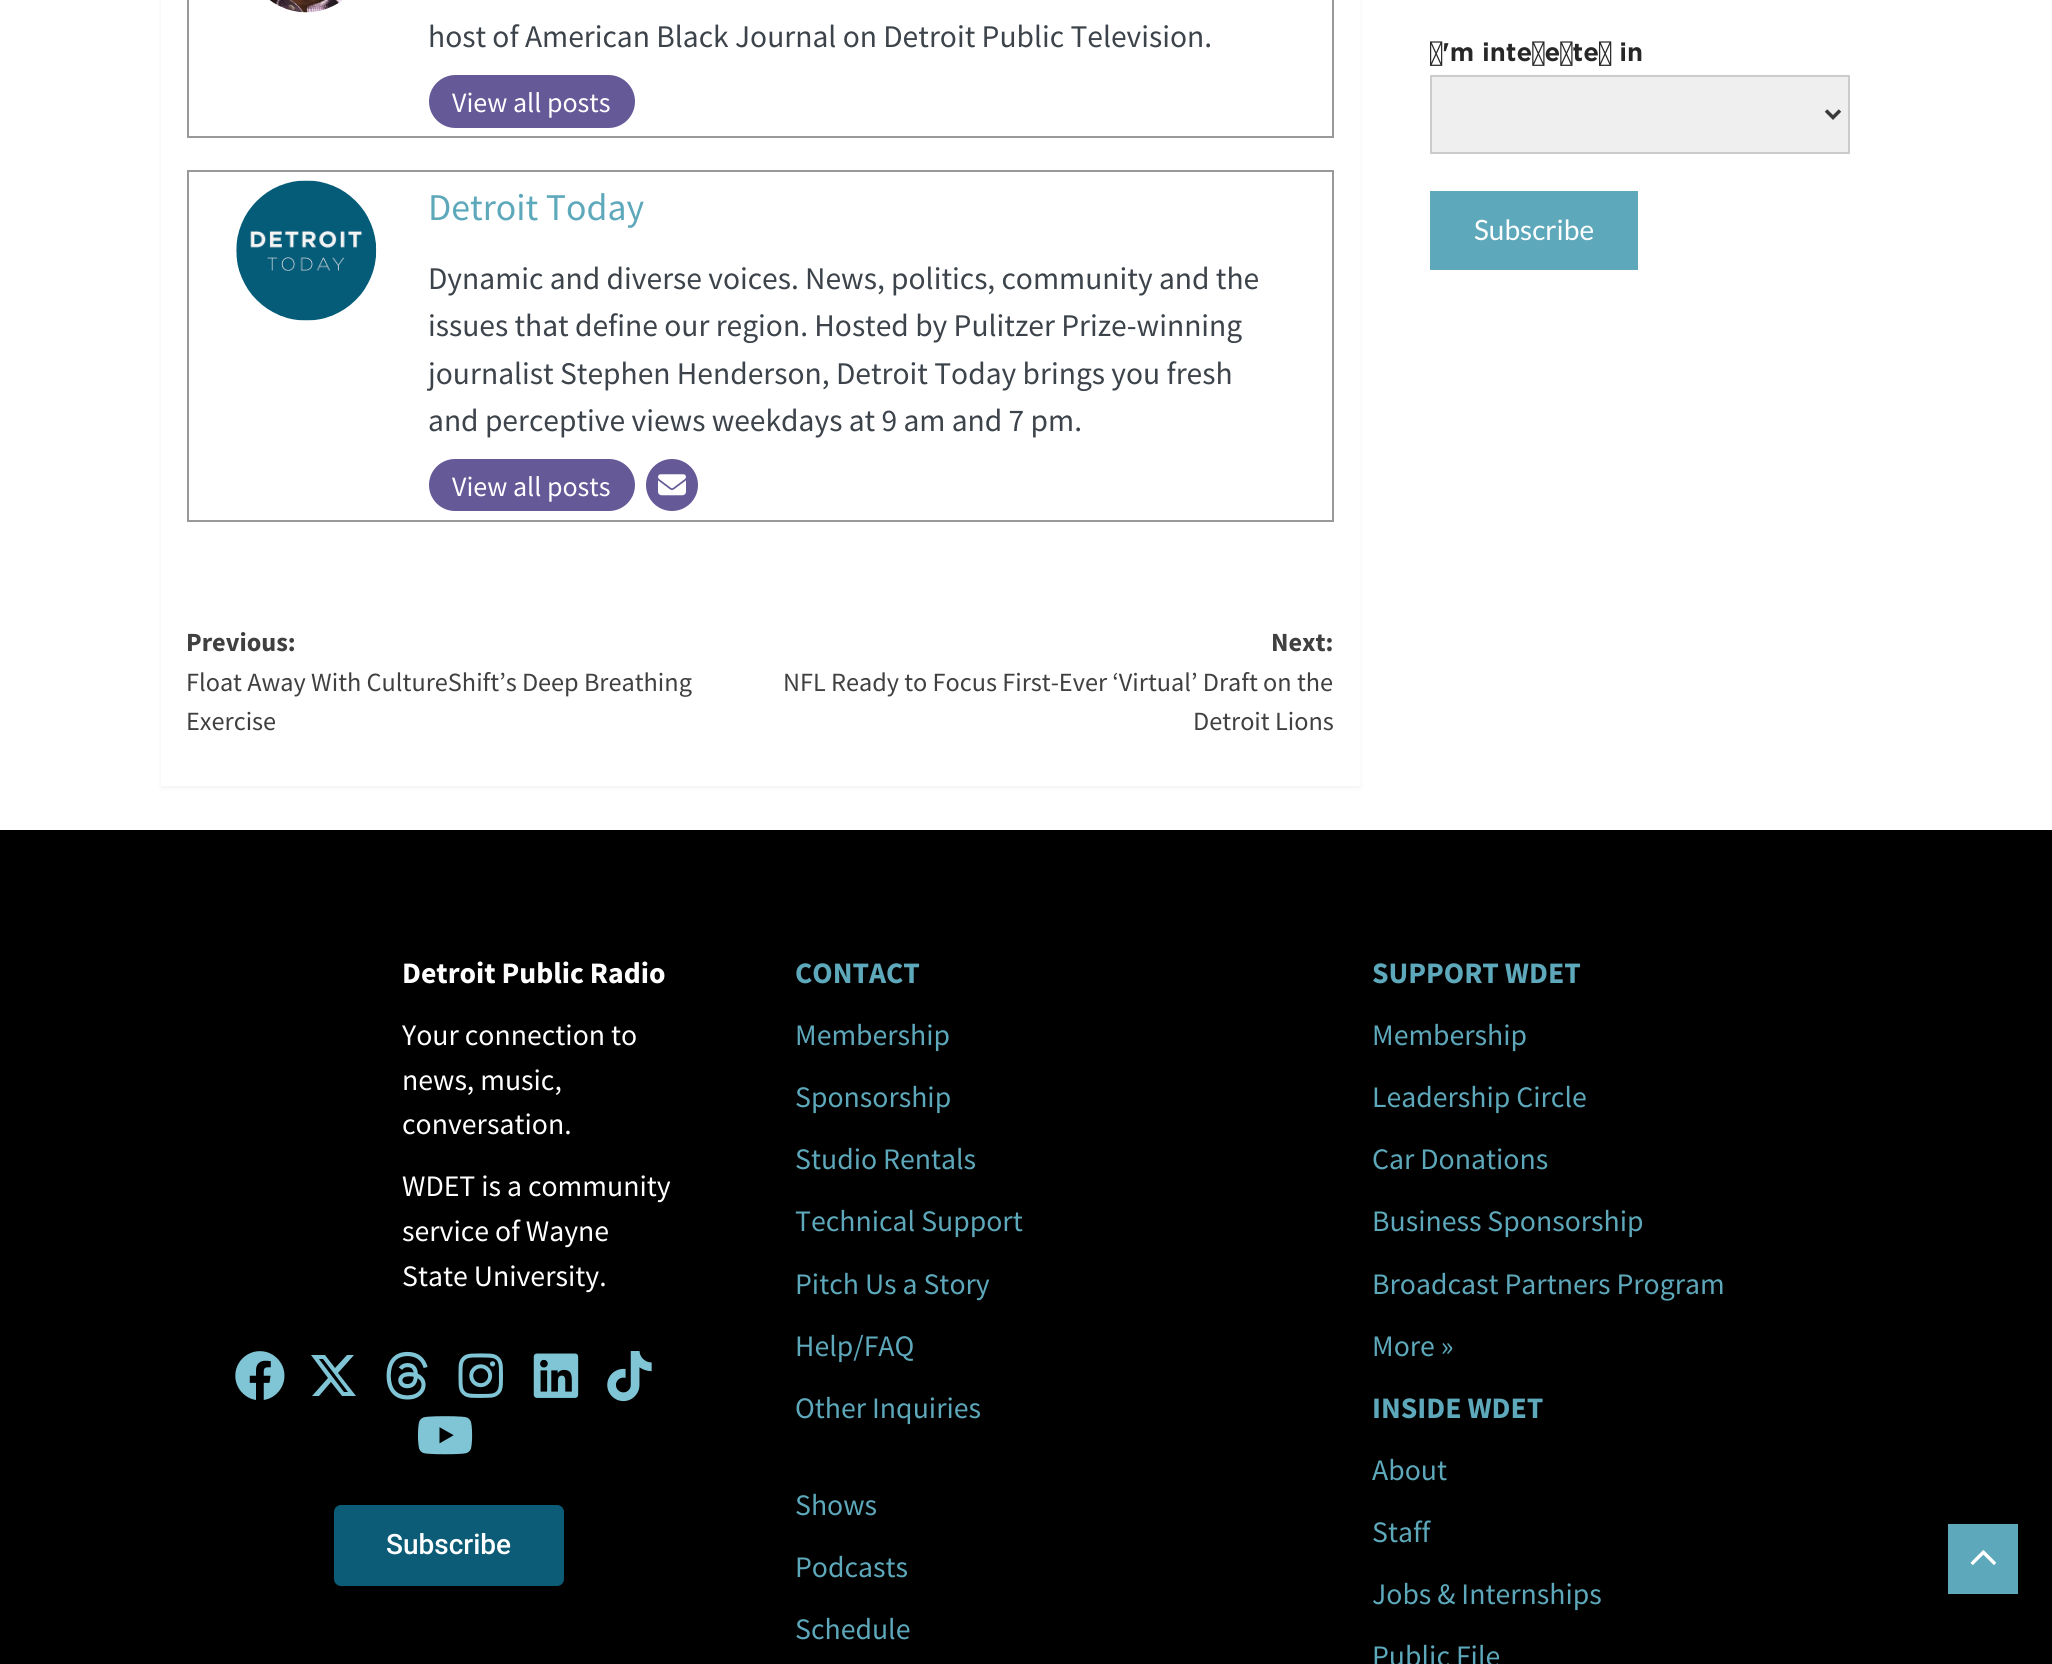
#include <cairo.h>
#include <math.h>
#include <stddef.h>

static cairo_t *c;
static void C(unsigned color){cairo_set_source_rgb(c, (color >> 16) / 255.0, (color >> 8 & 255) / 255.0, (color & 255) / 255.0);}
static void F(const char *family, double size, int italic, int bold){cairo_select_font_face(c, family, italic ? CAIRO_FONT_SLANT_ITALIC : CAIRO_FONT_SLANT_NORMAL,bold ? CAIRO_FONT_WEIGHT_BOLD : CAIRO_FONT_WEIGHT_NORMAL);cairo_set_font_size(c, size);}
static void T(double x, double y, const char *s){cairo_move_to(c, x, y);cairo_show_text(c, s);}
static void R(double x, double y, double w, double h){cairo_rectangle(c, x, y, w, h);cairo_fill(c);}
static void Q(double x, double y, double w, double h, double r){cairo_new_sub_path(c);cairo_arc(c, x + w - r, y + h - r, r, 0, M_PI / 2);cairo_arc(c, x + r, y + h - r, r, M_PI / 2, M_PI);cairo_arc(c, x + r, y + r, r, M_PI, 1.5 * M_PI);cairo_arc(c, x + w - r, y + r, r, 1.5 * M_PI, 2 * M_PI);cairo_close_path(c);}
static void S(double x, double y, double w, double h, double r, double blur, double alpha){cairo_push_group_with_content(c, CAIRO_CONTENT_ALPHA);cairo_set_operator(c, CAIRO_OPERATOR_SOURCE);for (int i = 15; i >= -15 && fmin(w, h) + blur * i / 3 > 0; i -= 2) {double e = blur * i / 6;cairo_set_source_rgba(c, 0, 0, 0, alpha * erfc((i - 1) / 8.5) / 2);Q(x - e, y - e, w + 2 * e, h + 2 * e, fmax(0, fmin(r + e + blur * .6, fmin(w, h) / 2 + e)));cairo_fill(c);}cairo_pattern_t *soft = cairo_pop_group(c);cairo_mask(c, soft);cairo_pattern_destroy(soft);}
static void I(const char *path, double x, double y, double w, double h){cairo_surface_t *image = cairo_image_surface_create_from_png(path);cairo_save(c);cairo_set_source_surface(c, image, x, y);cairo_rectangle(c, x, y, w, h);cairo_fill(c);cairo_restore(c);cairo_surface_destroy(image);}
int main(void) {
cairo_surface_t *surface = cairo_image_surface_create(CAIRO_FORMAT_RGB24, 2052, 1664);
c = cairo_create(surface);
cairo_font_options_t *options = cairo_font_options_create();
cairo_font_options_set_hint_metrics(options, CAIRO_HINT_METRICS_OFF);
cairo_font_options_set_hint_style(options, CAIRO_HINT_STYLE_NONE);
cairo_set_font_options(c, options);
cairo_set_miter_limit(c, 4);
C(0xffffff);
cairo_paint(c);
C(0x000000);
S(161,-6,1199,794,0,2,.05);
C(0xffffff);
R(161,0,1199,786);
cairo_rectangle(c,188,-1,1145,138);
C(0x999999);
cairo_stroke(c);
I("1.png",270,0,73,13);
F("Source Sans Pro",31.5,0,0);
C(0x3c434a);
T(428,47,"host of American Black Journal on Detroit Public Television.");
C(0x655997);
Q(429,75,206,53,26.5);
cairo_fill(c);
F("Source Sans Pro",28,0,0);
C(0xffffff);
T(452,112,"View all posts");
cairo_rectangle(c,188,171,1145,350);
C(0x999999);
cairo_stroke(c);
I("2.png",236,180,141,141);
F("Source Sans Pro",37.75,0,0);
C(0x5da8ba);
T(428,220,"Detroit Today");
F("Source Sans Pro",31.5,0,0);
C(0x3c434a);
T(428,289,"Dynamic and diverse voices. News, politics, community and the");
T(428,336,"issues that define our region. Hosted by Pulitzer Prize-winning");
T(428,384,"journalist Stephen Henderson, Detroit Today brings you fresh");
T(428,431,"and perceptive views weekdays at 9 am and 7 pm.");
C(0x655997);
Q(429,459,206,52,26);
cairo_fill(c);
F("Source Sans Pro",28,0,0);
C(0xffffff);
T(452,496,"View all posts");
C(0x655997);
cairo_new_path(c);
cairo_arc(c,672,485,26,0,2 * M_PI);
cairo_fill(c);
I("3.png",658,474,28,22);
F("Source Sans Pro",26.25,0,1);
C(0x404040);
T(186,651,"Previous:");
F("Source Sans Pro",26.25,0,0);
T(186,691,"Float Away With CultureShift’s Deep Breathing");
T(186,730,"Exercise");
F("Source Sans Pro",26.25,0,1);
T(1271,651,"Next:");
F("Source Sans Pro",26.25,0,0);
T(783,691,"NFL Ready to Focus First-Ever ‘Virtual’ Draft on the");
T(1193,730,"Detroit Lions");
F("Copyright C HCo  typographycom",24.5,0,0);
C(0x272727);
T(1430,61,"I'm interested in");
C(0xefefef);
cairo_rectangle(c,1431,76,418,77);
cairo_fill_preserve(c);
C(0xcccccc);
cairo_stroke(c);
cairo_new_path(c);
cairo_move_to(c,1826,110.5);
cairo_line_to(c,1833,117.5);
cairo_line_to(c,1840,110.5);
C(0x3a3a3a);
cairo_set_line_width(c,3.5);
cairo_stroke(c);
C(0x5da8ba);
R(1430,191,208,79);
F("Lato",28,0,0);
C(0xffffff);
T(1474,240,"Subscribe");
C(0x000000);
R(0,830,2052,834);
F("Source Sans Pro",29.75,0,1);
C(0xffffff);
T(402,983,"Detroit Public Radio");
F("Source Sans Pro",29.75,0,0);
T(402,1045,"Your connection to");
T(402,1090,"news, music,");
T(402,1134,"conversation.");
T(402,1196,"WDET is a community");
T(402,1241,"service of Wayne");
T(402,1286,"State University.");
I("4.png",235,1351,50,49);
C(0x80c5d6);
cairo_new_path(c);
cairo_move_to(c,347,1355);
cairo_line_to(c,354,1355);
cairo_line_to(c,338,1373);
cairo_line_to(c,356,1396);
cairo_line_to(c,342,1396);
cairo_line_to(c,331,1382);
cairo_line_to(c,319,1396);
cairo_line_to(c,312,1396);
cairo_line_to(c,328,1378);
cairo_line_to(c,311,1355);
cairo_line_to(c,325,1355);
cairo_line_to(c,335,1368);
cairo_close_path(c);
cairo_move_to(c,344,1392);
cairo_line_to(c,348,1392);
cairo_line_to(c,323,1359);
cairo_line_to(c,319,1359);
cairo_close_path(c);
cairo_fill(c);
I("5.png",386,1351,42,49);
I("6.png",458,1353,45,45);
I("7.png",533,1353,46,45);
I("8.png",607,1351,45,51);
I("9.png",418,1416,55,39);
C(0x0c5c78);
Q(334,1505,230,81,7);
cairo_fill(c);
F("Roboto Medium",28,0,0);
C(0xffffff);
T(386,1554,"Subscribe");
F("Source Sans Pro",29.75,0,1);
C(0x5da8ba);
T(795,983,"CONTACT");
F("Source Sans Pro",29.75,0,0);
T(795,1045,"Membership");
T(795,1107,"Sponsorship");
T(795,1169,"Studio Rentals");
T(795,1231,"Technical Support");
T(795,1294,"Pitch Us a Story");
T(795,1356,"Help/FAQ");
T(795,1418,"Other Inquiries");
T(795,1515,"Shows");
T(795,1577,"Podcasts");
T(795,1639,"Schedule");
F("Source Sans Pro",29.75,0,1);
T(1372,983,"SUPPORT WDET");
F("Source Sans Pro",29.75,0,0);
T(1372,1045,"Membership");
T(1372,1107,"Leadership Circle");
T(1372,1169,"Car Donations");
T(1372,1231,"Business Sponsorship");
T(1372,1294,"Broadcast Partners Program");
T(1372,1356,"More »");
F("Source Sans Pro",29.75,0,1);
T(1372,1418,"INSIDE WDET");
F("Source Sans Pro",29.75,0,0);
T(1372,1480,"About");
T(1372,1542,"Staff");
T(1372,1604,"Jobs & Internships");
T(1372,1666,"Public File");
R(1948,1524,70,70);
I("10.png",1970,1550,26,15);
cairo_surface_write_to_png(surface, "o.png");
cairo_font_options_destroy(options);
cairo_destroy(c);
cairo_surface_destroy(surface);
return 0;
}
